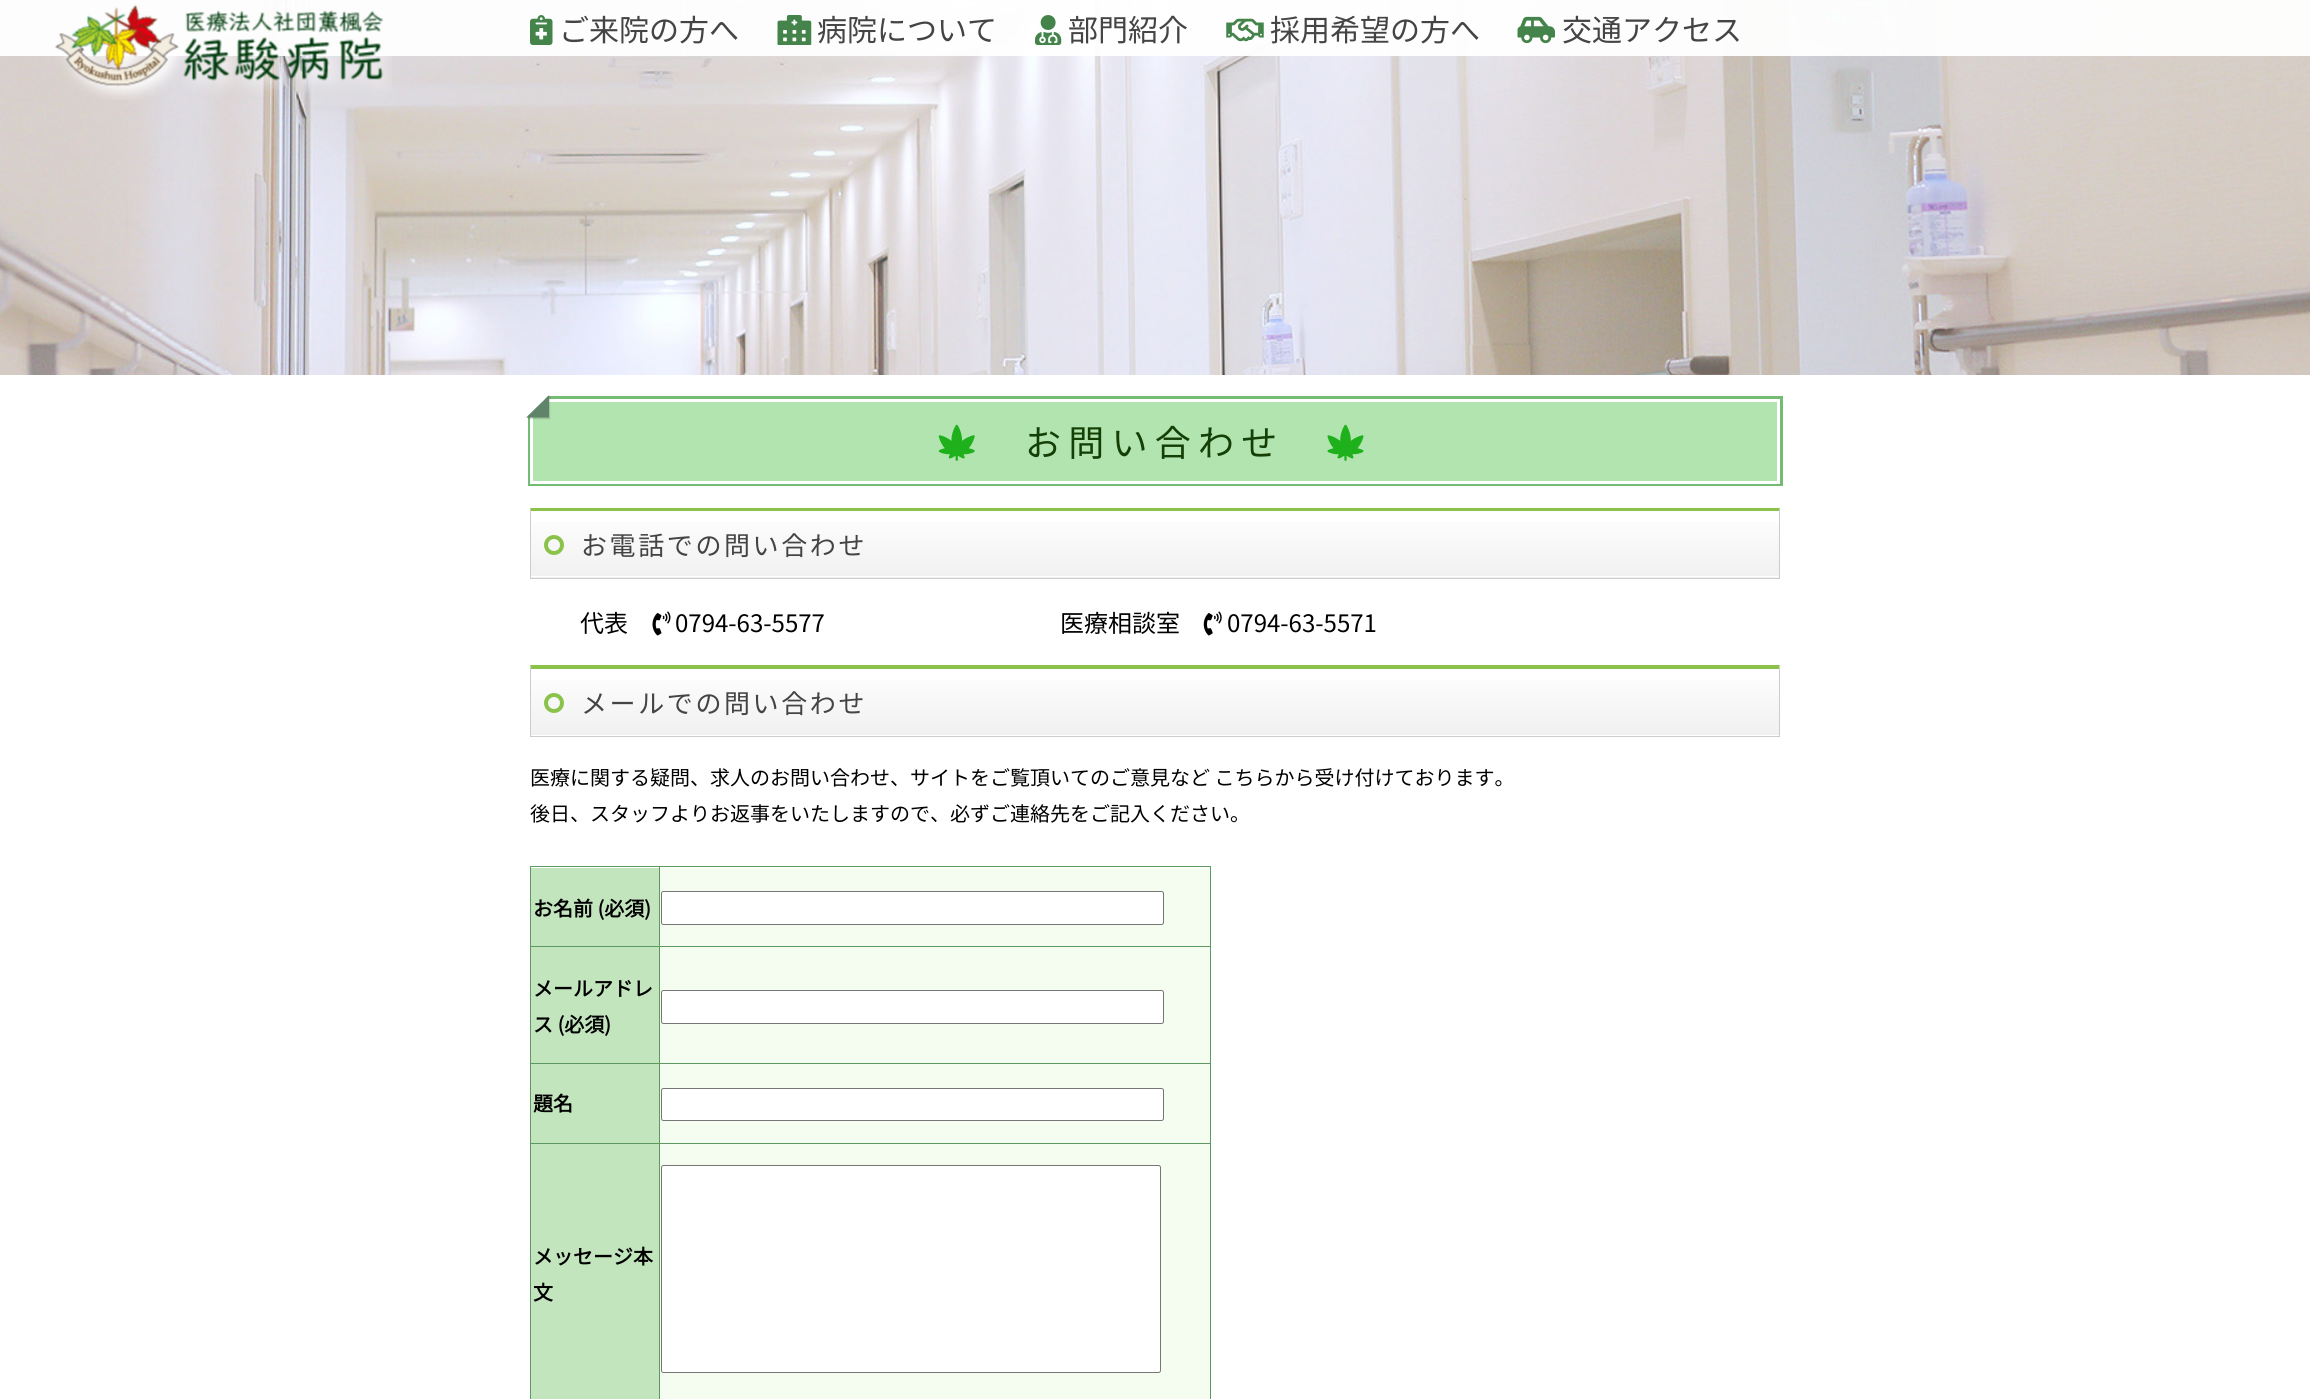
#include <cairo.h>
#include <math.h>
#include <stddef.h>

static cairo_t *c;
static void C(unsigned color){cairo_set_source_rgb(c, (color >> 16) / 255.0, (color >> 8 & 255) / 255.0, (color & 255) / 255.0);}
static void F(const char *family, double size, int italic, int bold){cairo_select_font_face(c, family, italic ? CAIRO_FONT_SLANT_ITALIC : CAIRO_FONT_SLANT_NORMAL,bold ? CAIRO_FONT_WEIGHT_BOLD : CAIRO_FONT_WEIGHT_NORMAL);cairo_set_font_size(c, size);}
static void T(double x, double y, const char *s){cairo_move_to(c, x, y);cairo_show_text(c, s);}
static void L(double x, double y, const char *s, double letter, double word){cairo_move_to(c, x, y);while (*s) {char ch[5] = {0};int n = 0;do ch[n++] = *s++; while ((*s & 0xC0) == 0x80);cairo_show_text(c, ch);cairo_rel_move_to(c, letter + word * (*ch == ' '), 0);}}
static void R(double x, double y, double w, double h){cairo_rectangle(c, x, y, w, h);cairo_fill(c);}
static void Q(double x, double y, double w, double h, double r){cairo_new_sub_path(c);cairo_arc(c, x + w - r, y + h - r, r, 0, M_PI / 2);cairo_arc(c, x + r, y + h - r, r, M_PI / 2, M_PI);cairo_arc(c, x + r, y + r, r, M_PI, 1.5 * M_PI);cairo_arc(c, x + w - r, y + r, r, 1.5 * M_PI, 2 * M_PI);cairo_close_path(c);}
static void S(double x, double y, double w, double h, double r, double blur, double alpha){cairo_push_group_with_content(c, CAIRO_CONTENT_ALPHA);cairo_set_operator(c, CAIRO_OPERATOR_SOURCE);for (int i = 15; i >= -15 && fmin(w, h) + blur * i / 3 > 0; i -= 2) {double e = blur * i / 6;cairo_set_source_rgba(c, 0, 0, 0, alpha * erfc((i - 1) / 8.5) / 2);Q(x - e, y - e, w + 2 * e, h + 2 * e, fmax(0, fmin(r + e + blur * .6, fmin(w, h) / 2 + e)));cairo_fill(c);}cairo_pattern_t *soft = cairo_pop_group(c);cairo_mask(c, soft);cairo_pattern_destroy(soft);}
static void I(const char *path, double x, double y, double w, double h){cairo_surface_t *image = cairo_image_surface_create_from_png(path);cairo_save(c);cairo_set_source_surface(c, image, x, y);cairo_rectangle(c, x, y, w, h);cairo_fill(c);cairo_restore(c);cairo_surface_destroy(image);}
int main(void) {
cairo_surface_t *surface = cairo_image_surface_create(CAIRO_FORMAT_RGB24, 2310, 1399);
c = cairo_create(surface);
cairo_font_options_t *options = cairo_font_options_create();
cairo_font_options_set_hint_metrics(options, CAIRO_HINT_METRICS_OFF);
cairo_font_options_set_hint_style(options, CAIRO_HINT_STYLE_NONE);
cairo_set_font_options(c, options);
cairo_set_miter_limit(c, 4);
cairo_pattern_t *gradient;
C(0xffffff);
cairo_paint(c);
I("1.png",0,0,2310,375);
cairo_set_source_rgba(c,1,1,1,0.95);
R(0,0,2310,56);
I("2.png",54,4,338,96);
I("3.png",530,15,23,30);
F("Noto Sans JP Thin",30,0,0);
C(0x444444);
T(559,41,"ご来院の方へ");
I("4.png",777,15,35,30);
T(817,41,"病院について");
I("5.png",1035,15,27,30);
T(1068,41,"部門紹介");
I("6.png",1226,18,38,24);
T(1270,41,"採用希望の方へ");
I("7.png",1517,16,38,28);
T(1562,41,"交通アクセス");
cairo_rectangle(c,529.5,397.5,1252,87);
C(0x74bb73);
cairo_set_line_width(c,3);
cairo_stroke(c);
C(0xb2e4b0);
cairo_rectangle(c,531.5,400.5,1247,82);
cairo_fill_preserve(c);
C(0xffffff);
cairo_stroke(c);
C(0x000000);
S(528,396,22,23,0,.5,.15);
C(0x608469);
cairo_new_path(c);
cairo_move_to(c,549,417.5);
cairo_line_to(c,526,417.5);
cairo_line_to(c,549,395);
cairo_close_path(c);
cairo_fill(c);
C(0xffffff);
cairo_new_path(c);
cairo_move_to(c,526,417.5);
cairo_line_to(c,526,395);
cairo_line_to(c,549,395);
cairo_close_path(c);
cairo_fill(c);
I("8.png",938,424,37,37);
F("Noto Sans JP Thin",36,0,0);
C(0x144006);
L(1025,456,"お問い合わせ",7.25,0);
I("9.png",1327,424,37,37);
gradient = cairo_pattern_create_linear(1155,511,1155,578);
cairo_pattern_add_color_stop_rgba(gradient,0,1,1,1,1);
cairo_pattern_add_color_stop_rgba(gradient,1,0.941,0.941,0.941,1);
cairo_set_source(c,gradient);
cairo_pattern_destroy(gradient);
R(531,522,1248,56);
C(0xffffff);
R(531,576,1248,1);
C(0x8bc34a);
cairo_new_path(c);
cairo_move_to(c,530,508);
cairo_line_to(c,1780,508);
cairo_line_to(c,1779,511);
cairo_line_to(c,531,511);
cairo_close_path(c);
cairo_fill(c);
C(0xcccccc);
cairo_new_path(c);
cairo_move_to(c,1780,508);
cairo_line_to(c,1780,579);
cairo_line_to(c,1779,578);
cairo_line_to(c,1779,511);
cairo_close_path(c);
cairo_fill(c);
R(530,578,1250,1);
cairo_new_path(c);
cairo_move_to(c,530,579);
cairo_line_to(c,530,508);
cairo_line_to(c,531,511);
cairo_line_to(c,531,578);
cairo_close_path(c);
cairo_fill(c);
cairo_arc(c,554,545,8,0,2 * M_PI);
C(0x8bc34a);
cairo_set_line_width(c,4);
cairo_stroke(c);
F("Noto Sans JP Thin",26,0,0);
C(0x444444);
L(581,555,"お電話での問い合わせ",2.6,0);
F("Noto Sans JP Thin",24,0,0);
C(0x000000);
T(580,632,"代表");
I("10.png",652,611,19,25);
T(675,632,"0794-63-5577");
T(1060,632,"医療相談室");
I("11.png",1203,611,19,25);
T(1227,632,"0794-63-5571");
gradient = cairo_pattern_create_linear(1155,669,1155,736);
cairo_pattern_add_color_stop_rgba(gradient,0,1,1,1,1);
cairo_pattern_add_color_stop_rgba(gradient,1,0.941,0.941,0.941,1);
cairo_set_source(c,gradient);
cairo_pattern_destroy(gradient);
R(531,680,1248,55);
C(0x8bc34a);
cairo_new_path(c);
cairo_move_to(c,530,665);
cairo_line_to(c,1780,665);
cairo_line_to(c,1779,669);
cairo_line_to(c,531,669);
cairo_close_path(c);
cairo_fill(c);
C(0xcccccc);
cairo_new_path(c);
cairo_move_to(c,1780,665);
cairo_line_to(c,1780,738);
cairo_line_to(c,1779,736);
cairo_line_to(c,1779,669);
cairo_close_path(c);
cairo_fill(c);
R(530,736,1250,1);
cairo_new_path(c);
cairo_move_to(c,530,738);
cairo_line_to(c,530,665);
cairo_line_to(c,531,669);
cairo_line_to(c,531,736);
cairo_close_path(c);
cairo_fill(c);
cairo_arc(c,554,703,8,0,2 * M_PI);
C(0x8bc34a);
cairo_stroke(c);
F("Noto Sans JP Thin",26,0,0);
C(0x444444);
L(581,713,"メールでの問い合わせ",2.6,0);
F("Noto Sans JP Thin",20,0,0);
C(0x000000);
T(530,785,"医療に関する疑問、求人のお問い合わせ、サイトをご覧頂いてのご意見など こちらから受け付けております。");
T(530,821,"後日、スタッフよりお返事をいたしますので、必ずご連絡先をご記入ください。");
C(0xc3e5be);
R(531,868,128,195);
C(0x5e9963);
R(659,866,552,1);
C(0xf5fdf1);
R(660,868,550,195);
C(0x5e9963);
R(659,946,552,1);
R(659,1063,552,1);
R(659,1143,552,1);
R(659,1143,1,256);
R(530,1143,130,1);
R(659,1063,1,81);
R(530,1063,130,1);
R(659,946,1,118);
R(530,946,130,1);
R(659,866,1,82);
R(530,866,130,1);
R(530,1143,1,256);
R(530,1063,1,81);
R(530,946,1,118);
R(530,866,1,82);
F("Noto Sans JP",20,0,1);
C(0x000000);
T(533,916,"お名前 (必須)");
C(0x5e9963);
R(1210,1143,1,256);
R(1210,1063,1,81);
R(1210,946,1,118);
R(1210,866,1,82);
C(0xffffff);
Q(661.5,891.5,502,33,2);
cairo_fill_preserve(c);
C(0x767676);
cairo_set_line_width(c,1);
cairo_stroke(c);
C(0x000000);
T(533,996,"メールアドレ");
T(533,1032,"ス (必須)");
C(0xffffff);
Q(661.5,990.5,502,33,2);
cairo_fill_preserve(c);
C(0x767676);
cairo_stroke(c);
C(0xc3e5be);
R(531,1064,128,79);
C(0x000000);
T(533,1111,"題名");
C(0xf5fdf1);
R(660,1064,550,79);
C(0xffffff);
Q(661.5,1088.5,502,32,2);
cairo_fill_preserve(c);
C(0x767676);
cairo_stroke(c);
C(0xc3e5be);
R(531,1144,128,255);
C(0x000000);
T(533,1264,"メッセージ本");
T(533,1300,"文");
C(0xf5fdf1);
R(660,1144,550,255);
C(0xffffff);
Q(661.5,1165.5,499,207,2);
cairo_fill_preserve(c);
C(0x767676);
cairo_stroke(c);
cairo_surface_write_to_png(surface, "o.png");
cairo_font_options_destroy(options);
cairo_destroy(c);
cairo_surface_destroy(surface);
return 0;
}
